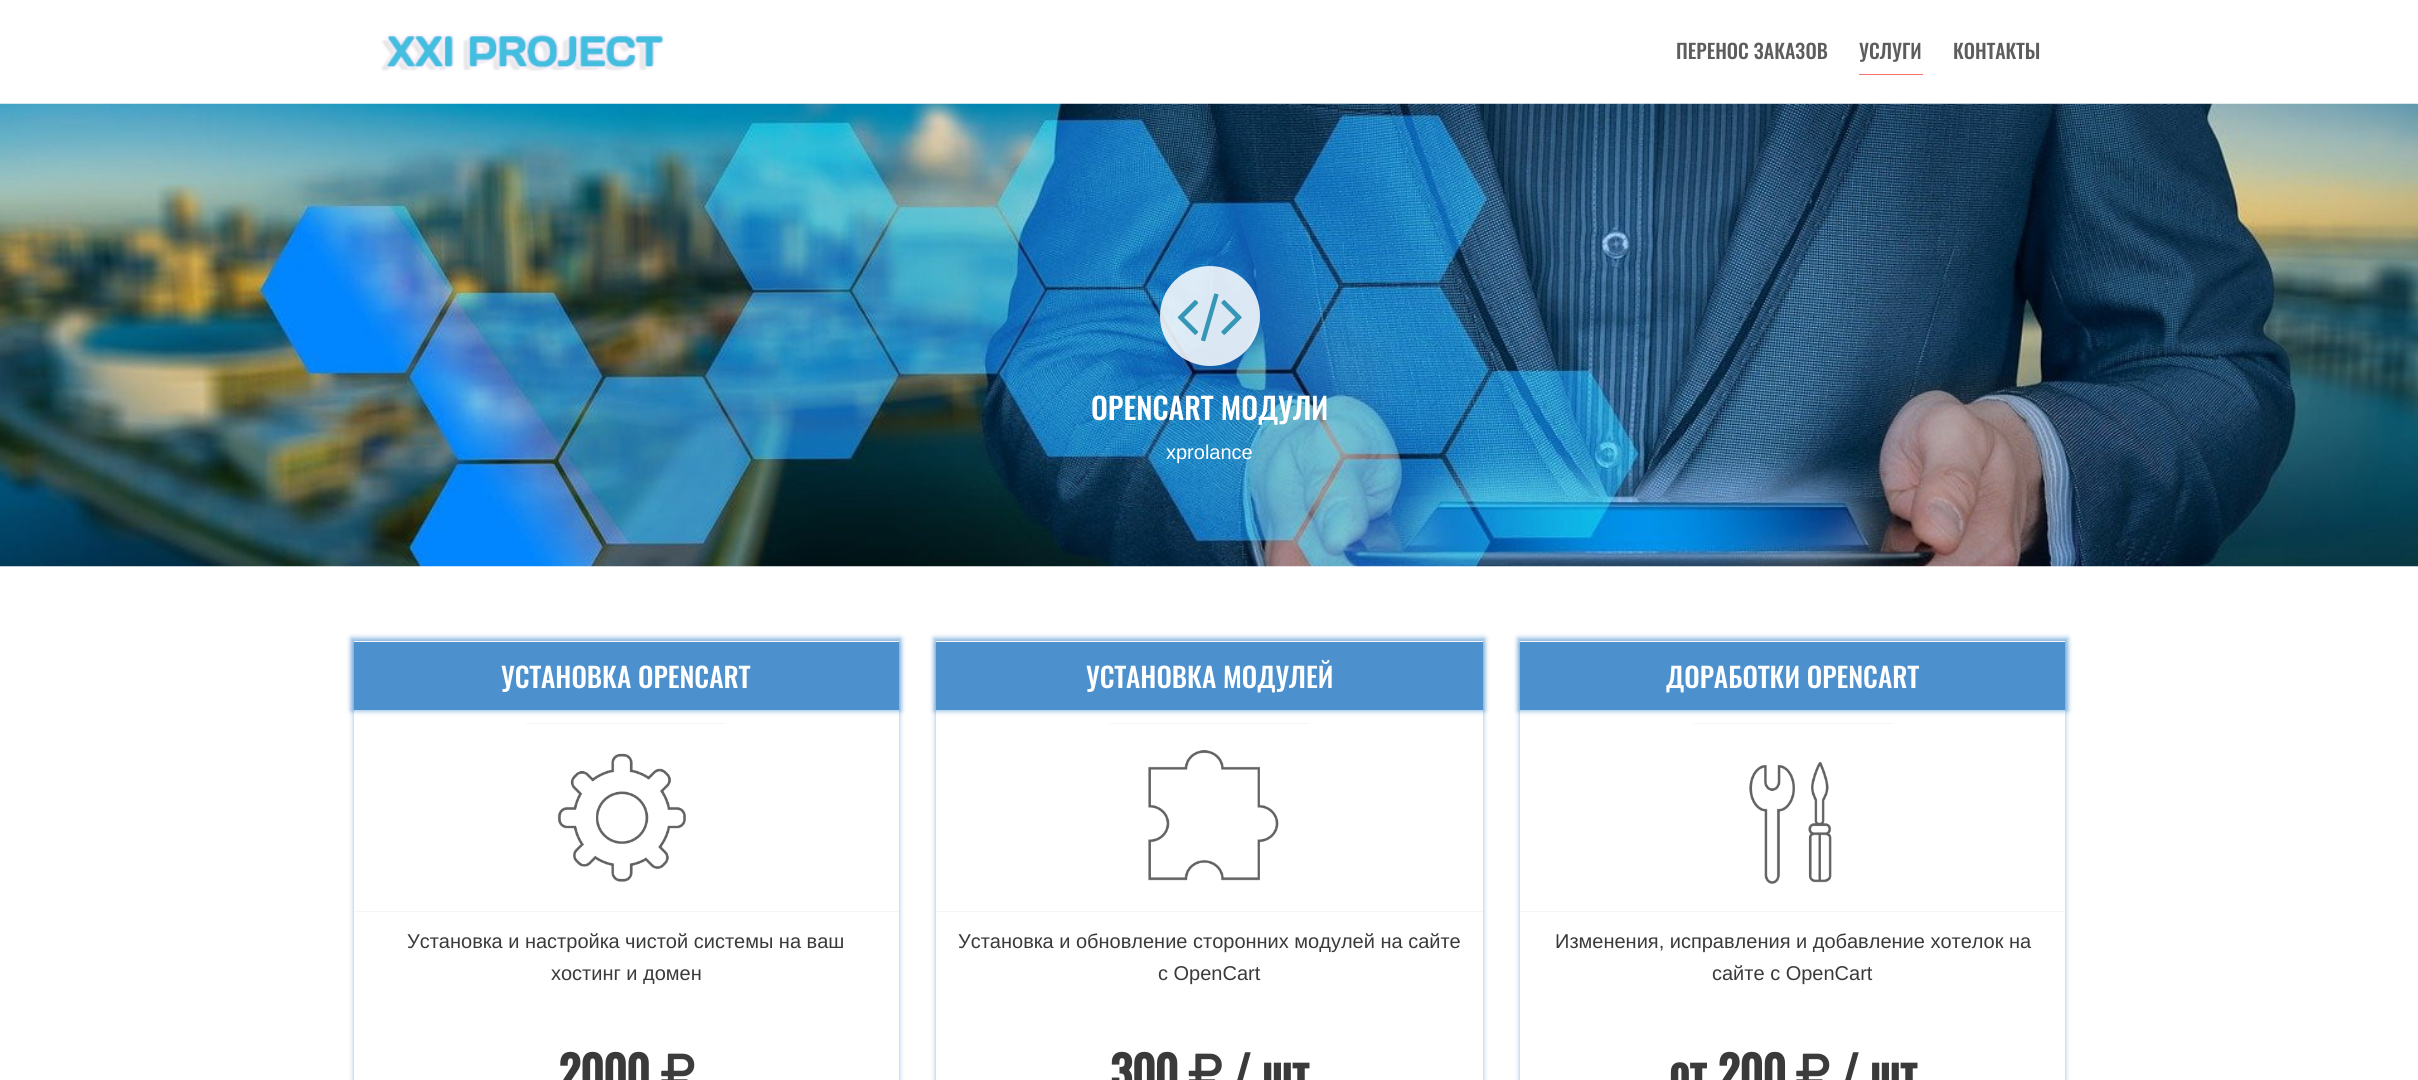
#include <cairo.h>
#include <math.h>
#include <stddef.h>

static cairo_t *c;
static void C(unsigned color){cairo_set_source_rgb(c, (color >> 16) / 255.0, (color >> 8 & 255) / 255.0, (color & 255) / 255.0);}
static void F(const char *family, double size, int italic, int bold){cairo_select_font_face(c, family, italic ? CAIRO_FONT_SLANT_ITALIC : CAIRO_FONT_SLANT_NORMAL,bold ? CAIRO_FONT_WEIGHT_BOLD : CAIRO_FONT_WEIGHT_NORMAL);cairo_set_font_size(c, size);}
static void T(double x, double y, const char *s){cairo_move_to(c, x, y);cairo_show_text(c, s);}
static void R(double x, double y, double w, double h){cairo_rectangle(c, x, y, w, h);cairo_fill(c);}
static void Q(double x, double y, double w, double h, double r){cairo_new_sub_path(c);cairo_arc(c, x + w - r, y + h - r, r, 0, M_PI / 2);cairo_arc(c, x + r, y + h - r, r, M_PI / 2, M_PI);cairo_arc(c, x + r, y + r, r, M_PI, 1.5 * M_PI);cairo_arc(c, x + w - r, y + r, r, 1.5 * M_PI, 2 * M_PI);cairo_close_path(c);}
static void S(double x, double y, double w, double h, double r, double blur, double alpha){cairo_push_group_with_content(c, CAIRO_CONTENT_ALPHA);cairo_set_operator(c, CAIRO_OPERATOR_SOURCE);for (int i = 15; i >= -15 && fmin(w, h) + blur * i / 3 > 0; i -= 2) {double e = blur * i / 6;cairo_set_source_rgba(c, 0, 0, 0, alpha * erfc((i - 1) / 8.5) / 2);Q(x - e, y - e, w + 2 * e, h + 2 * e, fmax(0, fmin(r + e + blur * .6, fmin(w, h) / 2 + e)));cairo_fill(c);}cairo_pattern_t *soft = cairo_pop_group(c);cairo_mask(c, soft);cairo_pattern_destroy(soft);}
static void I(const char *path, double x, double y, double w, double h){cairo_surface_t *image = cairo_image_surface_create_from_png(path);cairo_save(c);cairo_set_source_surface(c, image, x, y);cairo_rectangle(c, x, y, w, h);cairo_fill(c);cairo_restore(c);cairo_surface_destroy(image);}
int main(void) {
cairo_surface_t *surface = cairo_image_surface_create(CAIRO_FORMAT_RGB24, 2418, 1080);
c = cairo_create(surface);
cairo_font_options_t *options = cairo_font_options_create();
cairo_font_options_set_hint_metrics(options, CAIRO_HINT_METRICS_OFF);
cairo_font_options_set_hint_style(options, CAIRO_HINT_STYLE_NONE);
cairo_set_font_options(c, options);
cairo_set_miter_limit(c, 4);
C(0xffffff);
cairo_paint(c);
I("1.png",381,33,283,38);
F("Oswald Medium",20,0,0);
C(0x5d5d5d);
T(1676,59,"ПЕРЕНОС ЗАКАЗОВ");
C(0xff6d6d);
R(1859,74,64,1);
C(0x5d5d5d);
T(1859,59,"УСЛУГИ");
T(1953,59,"КОНТАКТЫ");
I("2.png",0,103,2418,464);
cairo_set_source_rgba(c,1,1,1,0.85);
cairo_arc(c,1210,316,50,0,2 * M_PI);
cairo_fill(c);
I("3.png",1177,293,65,49);
F("Oswald Medium",30,0,0);
C(0xffffff);
T(1091,420,"OPENCART МОДУЛИ");
F("Liberation Sans",20,0,0);
T(1166,459,"xprolance");
C(0x4c91cd);
S(354,644,545,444,0,2.5,.65);
C(0xffffff);
R(354,710,545,370);
C(0x4c91cd);
S(351,638,550,73,0,2.5,.65);
C(0x4c91cd);
R(354,642,545,68);
C(0xf5f5f5);
R(354,641,545,1);
F("Oswald Medium",27.5,0,0);
C(0xffffff);
T(501,688,"УСТАНОВКА OPENCART");
C(0xf5f5f5);
R(526,723,200,1);
I("4.png",557,753,129,129);
R(354,911,545,1);
F("Liberation Sans",20,0,0);
C(0x3a3a3a);
T(407,948,"Установка и настройка чистой системы на ваш");
T(551,980,"хостинг и домен");
F("Oswald",45,0,1);
T(558,1090,"2000");
I("5.png",661,1053,34,27);
C(0x4c91cd);
S(936,644,547,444,0,2.5,.65);
C(0xffffff);
R(936,710,547,370);
C(0x4c91cd);
S(934,638,551,73,0,2.5,.65);
C(0x4c91cd);
R(936,642,547,68);
C(0xf5f5f5);
R(936,641,547,1);
F("Oswald Medium",27.5,0,0);
C(0xffffff);
T(1086,688,"УСТАНОВКА МОДУЛЕЙ");
C(0xf5f5f5);
R(1109,723,200,1);
I("6.png",1148,750,131,131);
R(936,911,547,1);
F("Liberation Sans",20,0,0);
C(0x3a3a3a);
T(958,948,"Установка и обновление сторонних модулей на сайте");
T(1158,980,"с OpenCart");
F("Oswald",45,0,1);
T(1110,1090,"300");
I("7.png",1188,1053,34,27);
T(1233,1090,"/ шт");
C(0x4c91cd);
S(1520,644,545,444,0,2.5,.65);
C(0xffffff);
R(1520,710,545,370);
C(0x4c91cd);
S(1518,638,550,73,0,2.5,.65);
C(0x4c91cd);
R(1520,642,545,68);
C(0xf5f5f5);
R(1520,641,545,1);
F("Oswald Medium",27.5,0,0);
C(0xffffff);
T(1666,688,"ДОРАБОТКИ OPENCART");
C(0xf5f5f5);
R(1693,723,200,1);
I("8.png",1749,761,83,123);
R(1520,911,545,1);
F("Liberation Sans",20,0,0);
C(0x3a3a3a);
T(1555,948,"Изменения, исправления и добавление хотелок на");
T(1712,980,"сайте с OpenCart");
F("Oswald",45,0,1);
T(1669,1090,"от 200");
I("5.png",1796,1053,34,27);
T(1841,1090,"/ шт");
cairo_surface_write_to_png(surface, "o.png");
cairo_font_options_destroy(options);
cairo_destroy(c);
cairo_surface_destroy(surface);
return 0;
}
